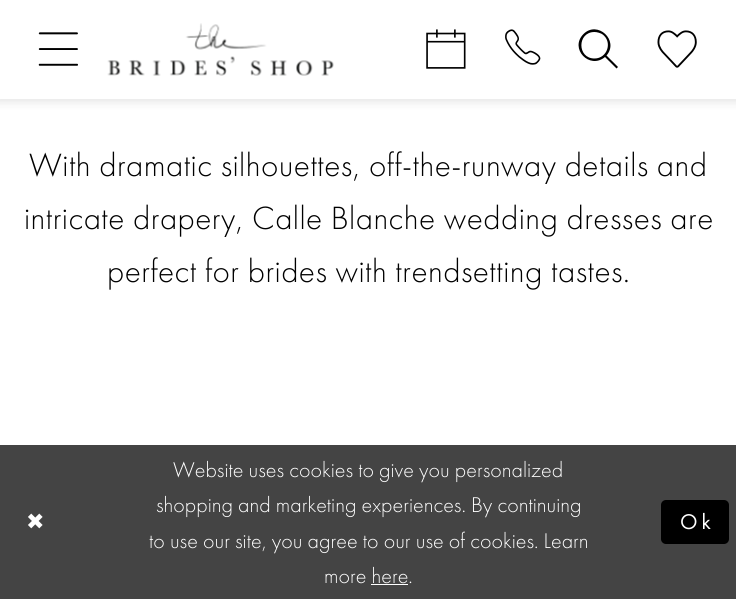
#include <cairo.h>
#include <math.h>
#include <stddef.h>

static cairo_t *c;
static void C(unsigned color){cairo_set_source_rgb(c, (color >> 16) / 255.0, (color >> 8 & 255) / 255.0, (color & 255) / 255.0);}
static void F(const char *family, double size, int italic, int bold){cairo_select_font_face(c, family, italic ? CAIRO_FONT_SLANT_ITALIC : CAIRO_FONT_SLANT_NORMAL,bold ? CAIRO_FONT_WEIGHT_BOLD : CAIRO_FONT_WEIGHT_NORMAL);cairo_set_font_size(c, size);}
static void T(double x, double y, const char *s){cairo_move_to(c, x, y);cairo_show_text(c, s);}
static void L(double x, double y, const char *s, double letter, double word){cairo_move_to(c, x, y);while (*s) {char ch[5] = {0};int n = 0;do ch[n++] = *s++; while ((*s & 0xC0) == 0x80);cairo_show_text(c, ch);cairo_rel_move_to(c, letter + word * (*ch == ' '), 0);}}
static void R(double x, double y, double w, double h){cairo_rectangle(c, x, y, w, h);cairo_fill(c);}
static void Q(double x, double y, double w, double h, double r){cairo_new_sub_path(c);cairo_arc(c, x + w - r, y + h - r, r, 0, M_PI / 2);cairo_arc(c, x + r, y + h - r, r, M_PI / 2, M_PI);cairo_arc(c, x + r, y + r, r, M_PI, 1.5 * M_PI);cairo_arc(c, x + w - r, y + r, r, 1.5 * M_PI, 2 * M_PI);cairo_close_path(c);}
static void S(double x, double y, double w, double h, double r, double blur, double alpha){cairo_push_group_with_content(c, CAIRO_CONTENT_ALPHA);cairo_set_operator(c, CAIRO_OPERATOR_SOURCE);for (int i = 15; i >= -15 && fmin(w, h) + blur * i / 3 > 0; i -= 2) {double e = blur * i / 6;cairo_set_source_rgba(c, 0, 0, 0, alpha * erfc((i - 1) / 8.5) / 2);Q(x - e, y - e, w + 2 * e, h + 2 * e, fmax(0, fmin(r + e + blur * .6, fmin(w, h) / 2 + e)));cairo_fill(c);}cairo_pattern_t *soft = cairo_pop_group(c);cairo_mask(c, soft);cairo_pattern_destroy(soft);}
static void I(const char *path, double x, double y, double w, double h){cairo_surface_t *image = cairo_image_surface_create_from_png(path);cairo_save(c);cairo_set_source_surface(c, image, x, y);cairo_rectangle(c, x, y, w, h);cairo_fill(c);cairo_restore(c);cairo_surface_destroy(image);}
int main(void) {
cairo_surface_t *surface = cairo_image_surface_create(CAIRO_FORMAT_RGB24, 736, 599);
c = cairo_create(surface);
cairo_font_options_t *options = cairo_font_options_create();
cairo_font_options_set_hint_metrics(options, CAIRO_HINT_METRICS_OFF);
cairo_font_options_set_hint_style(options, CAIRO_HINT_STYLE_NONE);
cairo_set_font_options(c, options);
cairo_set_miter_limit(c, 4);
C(0xffffff);
cairo_paint(c);
C(0x1e1e1e);
S(-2,-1,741,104,0,4,.1);
C(0xffffff);
R(0,0,736,99);
I("1.png",38,32,40,34);
I("2.png",107,23,227,53);
I("3.png",426,29,40,40);
I("4.png",505,29,36,36);
C(0x000000);
cairo_new_path(c);
cairo_move_to(c,606.5,55.5);
cairo_curve_to(c,619.5,40.5,597.5,20,583.5,34);
cairo_curve_to(c,569,48.5,589.5,70,605,57);
cairo_line_to(c,616.5,68.5);
cairo_line_to(c,618,67);
cairo_close_path(c);
cairo_move_to(c,594.5,58.5);
cairo_curve_to(c,577,58.5,577,32,594.5,32);
cairo_curve_to(c,597,32,600,33,602,34);
cairo_curve_to(c,613,41.5,607.5,58.5,594.5,58.5);
cairo_close_path(c);
cairo_fill(c);
I("5.png",657,30,40,38);
F("Futura PT Light",33.4,0,0);
L(29,176,"With dramatic silhouettes, off-the-runway details and",.45,0);
L(24,229,"intricate drapery, Calle Blanche wedding dresses are",.45,0);
L(107,282,"perfect for brides with trendsetting tastes.",.45,0);
C(0x444444);
R(0,445,736,154);
F("DejaVu Sans",22.1,0,0);
C(0xffffff);
L(26,529,"✖",4,0);
F("Futura PT Light",22.1,0,0);
T(173,477,"Website uses cookies to give you personalized");
T(156,512,"shopping and marketing experiences. By continuing");
T(149,548,"to use our site, you agree to our use of cookies. Learn");
T(324,583,"more here.");
R(371,584,37,1);
C(0x000000);
Q(661,500,68,44,5);
cairo_fill(c);
F("Futura PT",22.1,0,0);
C(0xffffff);
L(680,529,"Ok",4,0);
cairo_surface_write_to_png(surface, "o.png");
cairo_font_options_destroy(options);
cairo_destroy(c);
cairo_surface_destroy(surface);
return 0;
}
